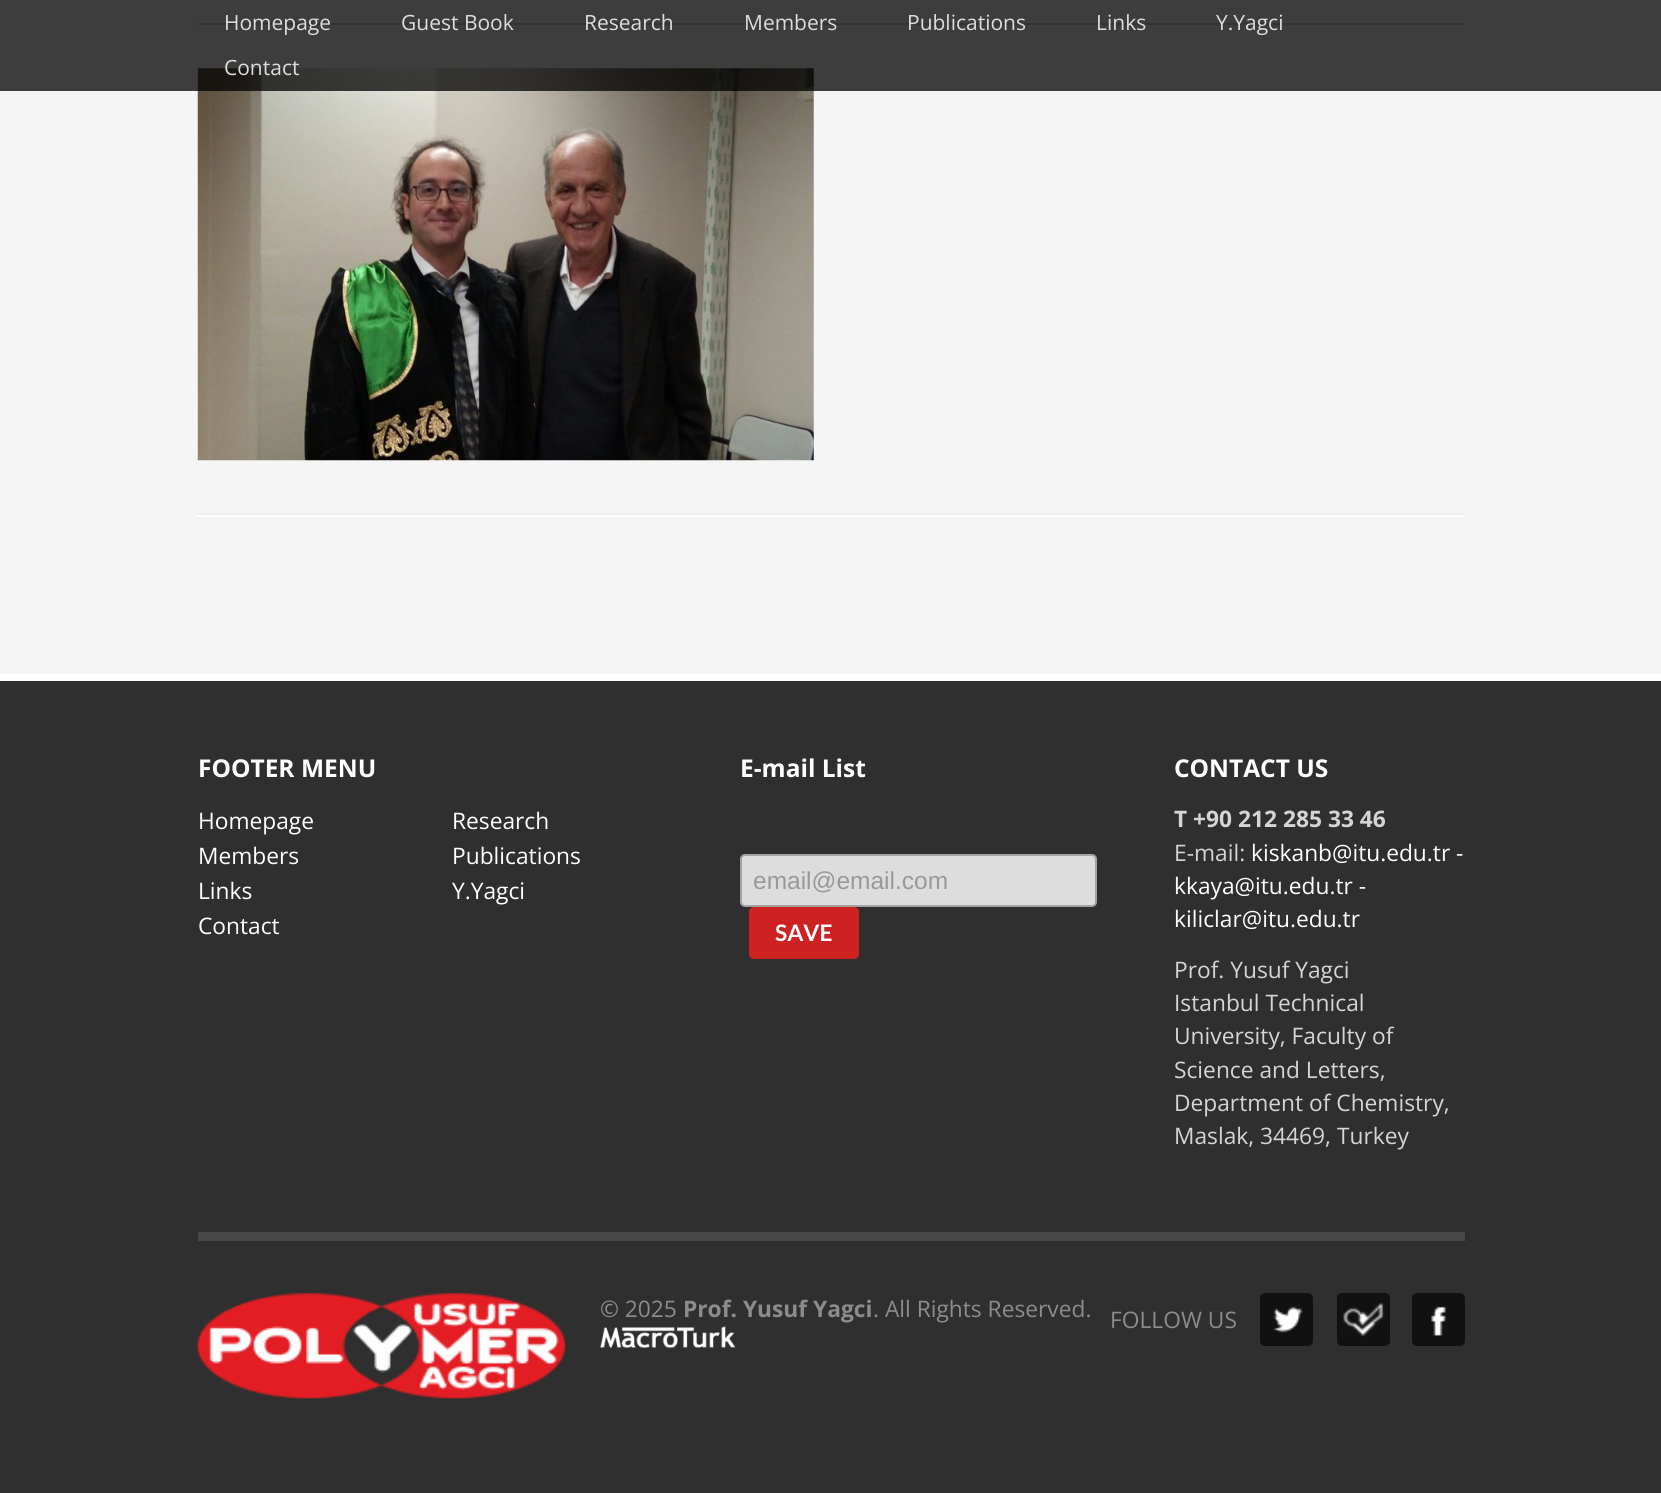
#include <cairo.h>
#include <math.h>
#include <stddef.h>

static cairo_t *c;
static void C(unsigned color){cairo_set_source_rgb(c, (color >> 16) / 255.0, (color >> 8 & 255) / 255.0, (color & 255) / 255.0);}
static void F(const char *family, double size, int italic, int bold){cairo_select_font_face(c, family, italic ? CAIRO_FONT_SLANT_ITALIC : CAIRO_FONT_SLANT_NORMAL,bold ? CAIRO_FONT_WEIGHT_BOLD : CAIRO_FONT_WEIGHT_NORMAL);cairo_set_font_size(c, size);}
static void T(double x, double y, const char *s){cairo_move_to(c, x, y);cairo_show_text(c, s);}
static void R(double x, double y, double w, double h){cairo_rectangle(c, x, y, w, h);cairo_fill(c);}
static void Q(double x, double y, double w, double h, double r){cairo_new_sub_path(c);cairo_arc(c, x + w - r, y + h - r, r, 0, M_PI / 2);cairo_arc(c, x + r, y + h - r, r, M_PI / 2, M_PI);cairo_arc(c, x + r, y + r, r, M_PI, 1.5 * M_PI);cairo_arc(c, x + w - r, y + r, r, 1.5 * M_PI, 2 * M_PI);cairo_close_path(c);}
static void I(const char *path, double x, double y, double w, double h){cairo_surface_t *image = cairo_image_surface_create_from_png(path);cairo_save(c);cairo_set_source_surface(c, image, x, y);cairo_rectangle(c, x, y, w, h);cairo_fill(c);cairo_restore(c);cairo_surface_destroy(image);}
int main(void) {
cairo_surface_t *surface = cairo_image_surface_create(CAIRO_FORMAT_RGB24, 1661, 1493);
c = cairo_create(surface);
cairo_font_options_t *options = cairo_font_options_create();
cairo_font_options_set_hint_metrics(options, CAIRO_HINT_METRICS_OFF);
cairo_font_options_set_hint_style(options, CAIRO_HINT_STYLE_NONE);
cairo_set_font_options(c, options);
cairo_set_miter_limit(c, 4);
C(0xf5f5f5);
cairo_paint(c);
C(0xcbcbcb);
R(198,23,1267,2);
I("1.png",197,68,617,393);
cairo_set_source_rgba(c,0,0,0,0.75);
R(0,0,1661,91);
F("Open Sans",21,0,0);
C(0xdddddd);
T(224,30,"Homepage");
T(401,30,"Guest Book");
T(584,30,"Research");
T(744,30,"Members");
T(907,30,"Publications");
T(1096,30,"Links");
T(1216,30,"Y.Yagci");
T(224,75,"Contact");
C(0xeeeeee);
R(198,513,1267,2);
C(0xffffff);
R(198,515,1267,2);
C(0x2f2f2f);
R(0,681,1661,812);
C(0xffffff);
R(0,674,1661,7);
F("Open Sans",24.5,0,1);
T(198,777,"FOOTER MENU");
F("Open Sans",22.75,0,0);
T(198,829,"Homepage");
T(452,829,"Research");
T(198,864,"Members");
T(452,864,"Publications");
T(198,899,"Links");
T(452,899,"Y.Yagci");
T(198,934,"Contact");
F("Open Sans",24.5,0,1);
T(740,777,"E-mail List");
C(0xdddddd);
Q(741,855,355,51,4);
cairo_fill_preserve(c);
C(0xa3a3a3);
cairo_stroke(c);
F("Liberation Sans",24.5,0,0);
C(0x999999);
T(753,889,"email@email.com");
C(0xcd2122);
Q(749,907,110,52,5);
cairo_fill(c);
F("Lato",22.75,0,1);
C(0xffffff);
T(775,941,"SAVE");
F("Open Sans",24.5,0,1);
T(1174,777,"CONTACT US");
F("Open Sans",22.75,0,1);
C(0xd5d5d5);
T(1174,827,"T +90 212 285 33 46");
F("Open Sans",22.75,0,0);
T(1174,861,"E-mail:");
C(0xffffff);
T(1251,861,"kiskanb@itu.edu.tr -");
T(1174,894,"kkaya@itu.edu.tr -");
T(1174,927,"kiliclar@itu.edu.tr");
C(0xd5d5d5);
T(1174,978,"Prof. Yusuf Yagci");
T(1174,1011,"Istanbul Technical");
T(1174,1044,"University, Faculty of");
T(1174,1078,"Science and Letters,");
T(1174,1111,"Department of Chemistry,");
T(1174,1144,"Maslak, 34469, Turkey");
C(0x484848);
R(198,1232,1267,9);
I("2.png",197,1293,369,106);
C(0x8b8c8d);
T(600,1317,"© 2025");
F("Open Sans",22.75,0,1);
T(683,1317,"Prof. Yusuf Yagci");
F("Open Sans",22.75,0,0);
T(873,1317,". All Rights Reserved.");
I("3.png",600,1326,135,22);
T(1110,1328,"FOLLOW US");
C(0x111111);
Q(1260,1293,53,53,5);
cairo_fill(c);
I("4.png",1273,1306,30,27);
Q(1337,1293,53,53,5);
cairo_fill(c);
I("5.png",1342,1302,43,35);
Q(1412,1293,53,53,5);
cairo_fill(c);
I("6.png",1431,1306,15,30);
cairo_surface_write_to_png(surface, "o.png");
cairo_font_options_destroy(options);
cairo_destroy(c);
cairo_surface_destroy(surface);
return 0;
}
